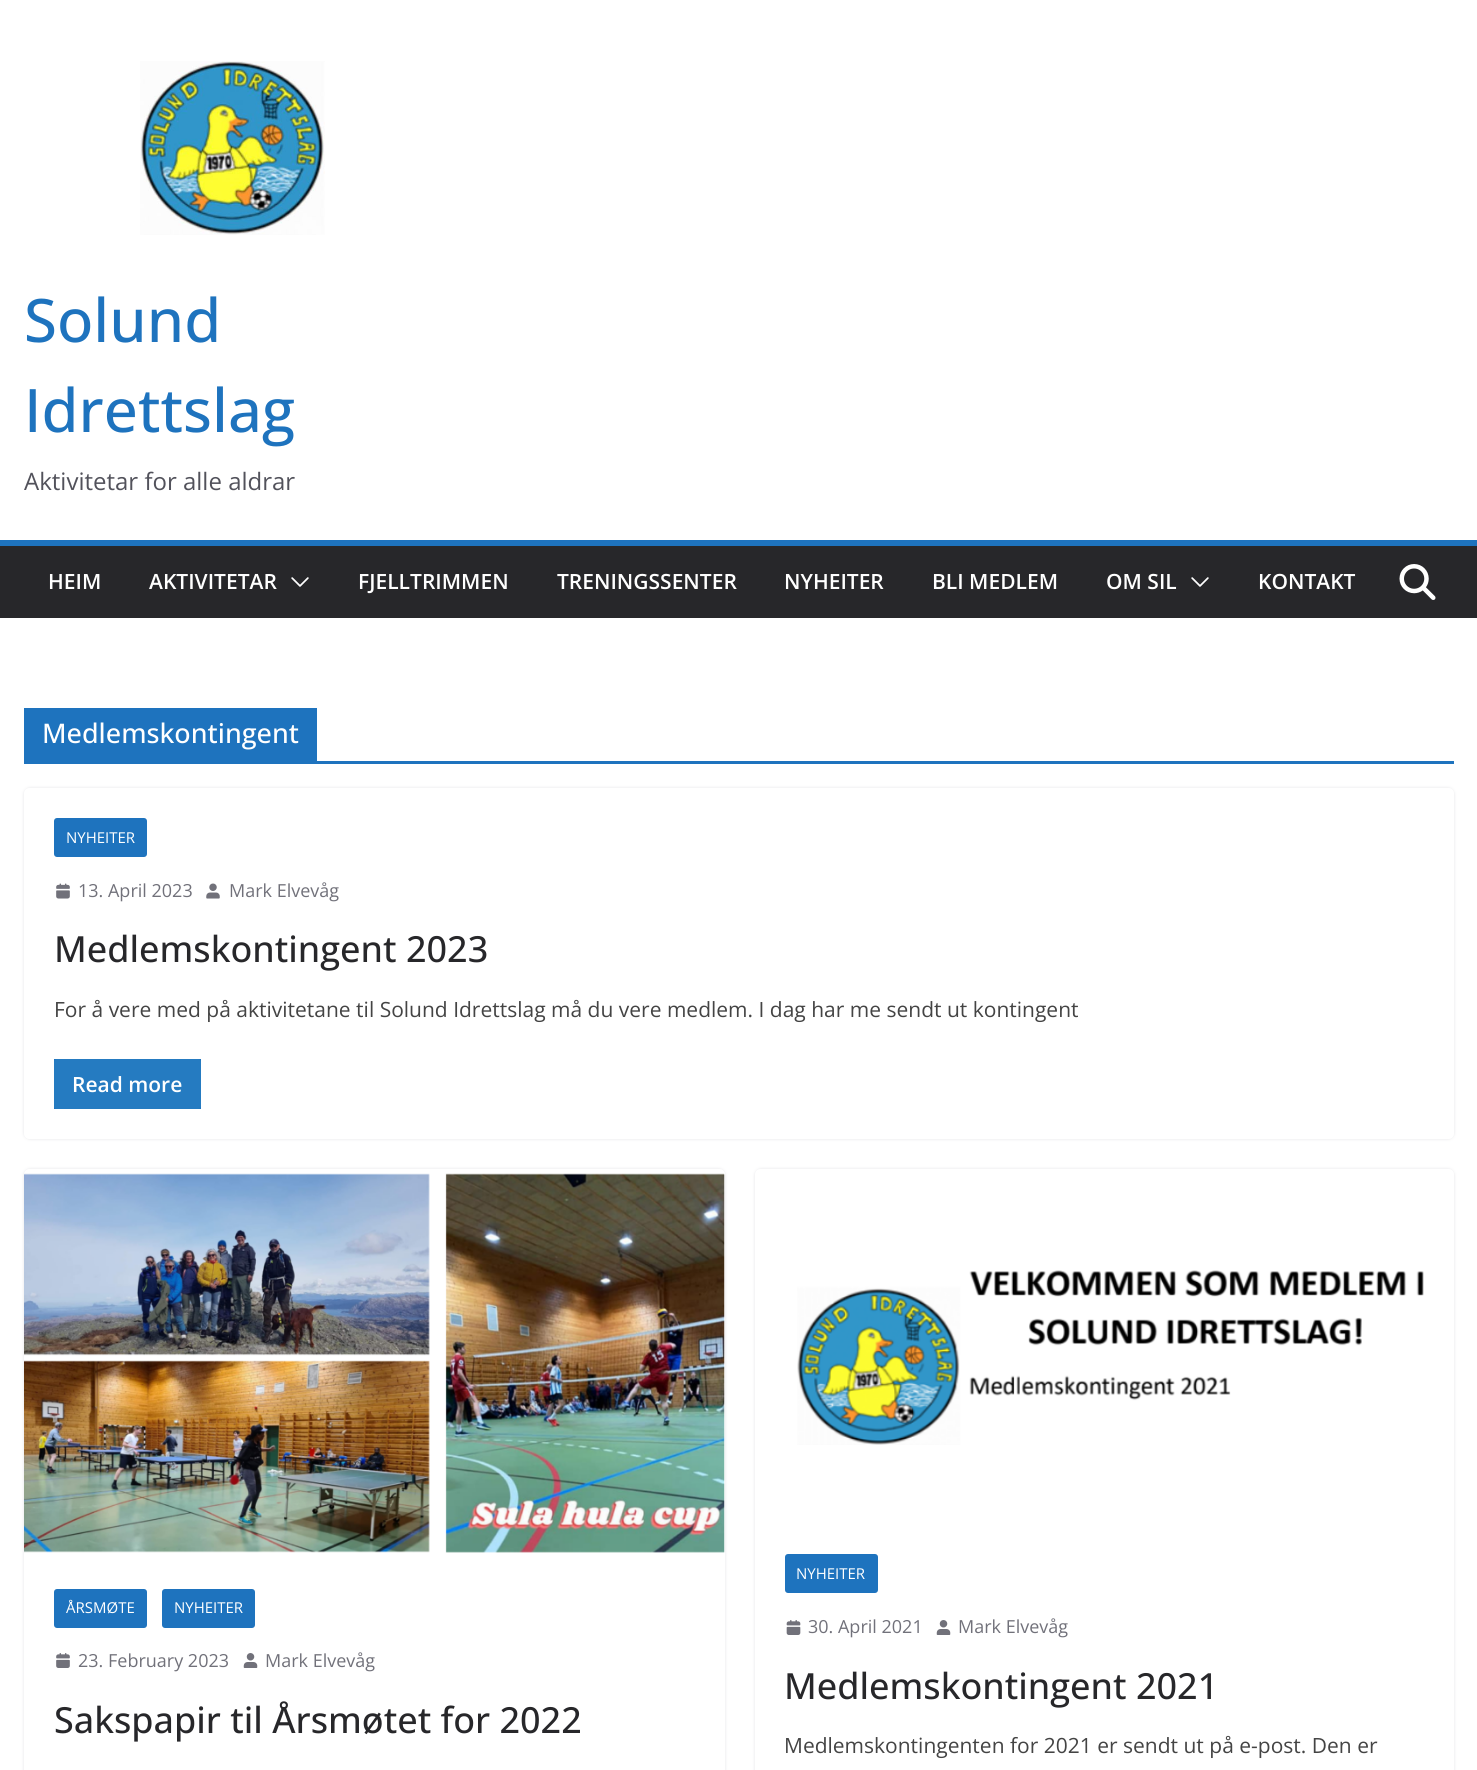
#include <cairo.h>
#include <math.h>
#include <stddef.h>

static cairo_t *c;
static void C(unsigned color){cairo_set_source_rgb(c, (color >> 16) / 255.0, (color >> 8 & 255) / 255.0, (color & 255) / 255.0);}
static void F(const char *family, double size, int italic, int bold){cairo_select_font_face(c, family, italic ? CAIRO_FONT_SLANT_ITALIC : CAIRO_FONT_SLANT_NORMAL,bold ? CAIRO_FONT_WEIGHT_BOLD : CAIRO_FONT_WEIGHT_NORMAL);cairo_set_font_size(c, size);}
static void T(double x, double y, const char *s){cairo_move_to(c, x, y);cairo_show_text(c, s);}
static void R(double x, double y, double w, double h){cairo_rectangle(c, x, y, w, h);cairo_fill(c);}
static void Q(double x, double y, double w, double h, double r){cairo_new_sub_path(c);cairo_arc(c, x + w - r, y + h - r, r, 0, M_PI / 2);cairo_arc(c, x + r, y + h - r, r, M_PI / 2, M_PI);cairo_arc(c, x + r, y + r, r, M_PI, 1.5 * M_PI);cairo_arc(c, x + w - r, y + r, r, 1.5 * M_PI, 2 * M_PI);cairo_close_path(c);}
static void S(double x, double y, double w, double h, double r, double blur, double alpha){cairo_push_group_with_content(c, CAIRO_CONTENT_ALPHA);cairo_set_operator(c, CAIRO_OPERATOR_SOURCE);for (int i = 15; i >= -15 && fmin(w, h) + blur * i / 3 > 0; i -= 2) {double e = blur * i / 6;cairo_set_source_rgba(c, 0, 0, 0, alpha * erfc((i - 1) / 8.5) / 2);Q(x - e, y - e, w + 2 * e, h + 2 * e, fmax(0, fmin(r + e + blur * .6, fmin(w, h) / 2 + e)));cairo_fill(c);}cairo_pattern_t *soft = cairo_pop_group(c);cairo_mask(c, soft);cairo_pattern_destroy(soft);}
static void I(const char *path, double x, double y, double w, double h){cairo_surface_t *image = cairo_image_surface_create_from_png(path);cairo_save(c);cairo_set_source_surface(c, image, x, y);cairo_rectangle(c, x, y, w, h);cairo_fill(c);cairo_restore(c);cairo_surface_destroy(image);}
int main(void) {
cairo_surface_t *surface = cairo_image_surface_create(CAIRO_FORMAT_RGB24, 1477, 1770);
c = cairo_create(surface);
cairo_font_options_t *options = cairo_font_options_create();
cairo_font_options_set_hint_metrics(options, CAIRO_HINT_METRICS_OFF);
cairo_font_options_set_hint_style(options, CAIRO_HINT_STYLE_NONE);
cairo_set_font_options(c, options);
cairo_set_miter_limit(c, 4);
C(0xffffff);
cairo_paint(c);
I("1.png",140,61,185,174);
F("Open Sans Medium",60,0,0);
C(0x1e73be);
T(24,342,"Solund");
T(24,432,"Idrettslag");
F("Open Sans",24,0,0);
C(0x52525b);
T(24,490,"Aktivitetar for alle aldrar");
C(0x27272a);
R(0,546,1477,72);
C(0x1e73be);
R(0,540,1477,6);
F("Open Sans SemiBold",21,0,0);
C(0xffffff);
T(48,589,"HEIM");
T(149,589,"AKTIVITETAR");
I("2.png",291,577,18,10);
T(358,589,"FJELLTRIMMEN");
T(557,589,"TRENINGSSENTER");
T(784,589,"NYHEITER");
T(932,589,"BLI MEDLEM");
T(1106,589,"OM SIL");
I("2.png",1191,577,18,10);
T(1258,589,"KONTAKT");
I("3.png",1399,564,37,36);
C(0x1e73be);
R(24,761,1430,3);
R(24,708,293,53);
F("Open Sans Medium",27,0,0);
C(0xffffff);
T(42,743,"Medlemskontingent");
cairo_save(c);
cairo_set_fill_rule(c,CAIRO_FILL_RULE_EVEN_ODD);
cairo_new_path(c);
cairo_move_to(c,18,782);
cairo_line_to(c,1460,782);
cairo_line_to(c,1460,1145);
cairo_line_to(c,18,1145);
cairo_close_path(c);
cairo_move_to(c,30,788);
cairo_line_to(c,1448,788);
cairo_curve_to(c,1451.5,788,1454,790.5,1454,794);
cairo_line_to(c,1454,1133);
cairo_curve_to(c,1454,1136.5,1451.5,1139,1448,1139);
cairo_line_to(c,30,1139);
cairo_curve_to(c,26.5,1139,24,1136.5,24,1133);
cairo_line_to(c,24,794);
cairo_curve_to(c,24,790.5,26.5,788,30,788);
cairo_close_path(c);
cairo_clip(c);
C(0xe4e4e7);
S(24,788,1430,351,6,1.5,1);
cairo_restore(c);
C(0x1e73be);
Q(54,818,93,39,3);
cairo_fill(c);
F("Open Sans",15,0,0);
C(0xffffff);
T(66,843,"NYHEITER");
I("4.png",56,883,14,16);
F("Open Sans",18,0,0);
C(0x71717a);
T(78,897,"13. April 2023");
I("5.png",206,883,14,16);
T(229,897,"Mark Elvevåg");
F("Open Sans Medium",36,0,0);
C(0x27272a);
T(54,962,"Medlemskontingent 2023");
F("Open Sans",21,0,0);
C(0x444444);
T(54,1017,"For å vere med på aktivitetane til Solund Idrettslag må du vere medlem. I dag har me sendt ut kontingent");
C(0x1e73be);
R(54,1059,147,50);
C(0x257bc1);
Q(54,1059,147,50,3);
cairo_fill(c);
F("Open Sans SemiBold",21,0,0);
C(0xffffff);
T(72,1092,"Read more");
cairo_save(c);
cairo_set_fill_rule(c,CAIRO_FILL_RULE_EVEN_ODD);
cairo_new_path(c);
cairo_move_to(c,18,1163);
cairo_line_to(c,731,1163);
cairo_line_to(c,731,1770);
cairo_line_to(c,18,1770);
cairo_close_path(c);
cairo_move_to(c,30,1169);
cairo_line_to(c,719,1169);
cairo_curve_to(c,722.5,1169,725,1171.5,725,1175);
cairo_line_to(c,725,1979);
cairo_curve_to(c,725,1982.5,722.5,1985,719,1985);
cairo_line_to(c,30,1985);
cairo_curve_to(c,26.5,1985,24,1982.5,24,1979);
cairo_line_to(c,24,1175);
cairo_curve_to(c,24,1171.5,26.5,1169,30,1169);
cairo_close_path(c);
cairo_clip(c);
C(0xe4e4e7);
S(24,1169,701,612,6,1.5,1);
cairo_restore(c);
I("6.png",24,1173,701,380);
C(0x1e73be);
Q(54,1589,93,39,3);
cairo_fill(c);
F("Open Sans",15,0,0);
C(0xffffff);
T(66,1613,"ÅRSMØTE");
C(0x1e73be);
Q(162,1589,93,39,3);
cairo_fill(c);
C(0xffffff);
T(174,1613,"NYHEITER");
I("7.png",56,1653,14,15);
F("Open Sans",18,0,0);
C(0x71717a);
T(78,1667,"23. February 2023");
I("8.png",243,1653,15,15);
T(265,1667,"Mark Elvevåg");
F("Open Sans Medium",36,0,0);
C(0x27272a);
T(54,1733,"Sakspapir til Årsmøtet for 2022");
cairo_save(c);
cairo_set_fill_rule(c,CAIRO_FILL_RULE_EVEN_ODD);
cairo_new_path(c);
cairo_move_to(c,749,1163);
cairo_line_to(c,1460,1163);
cairo_line_to(c,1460,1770);
cairo_line_to(c,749,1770);
cairo_close_path(c);
cairo_move_to(c,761,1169);
cairo_line_to(c,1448,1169);
cairo_curve_to(c,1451.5,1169,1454,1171.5,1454,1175);
cairo_line_to(c,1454,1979);
cairo_curve_to(c,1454,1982.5,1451.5,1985,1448,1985);
cairo_line_to(c,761,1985);
cairo_curve_to(c,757.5,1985,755,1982.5,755,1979);
cairo_line_to(c,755,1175);
cairo_curve_to(c,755,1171.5,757.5,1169,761,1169);
cairo_close_path(c);
cairo_clip(c);
C(0xe4e4e7);
S(755,1169,699,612,6,1.5,1);
cairo_restore(c);
I("9.png",797,1270,627,175);
C(0x1e73be);
Q(785,1554,93,39,3);
cairo_fill(c);
F("Open Sans",15,0,0);
C(0xffffff);
T(796,1579,"NYHEITER");
I("10.png",786,1620,15,15);
F("Open Sans",18,0,0);
C(0x71717a);
T(808,1633,"30. April 2021");
I("8.png",936,1620,15,15);
T(958,1633,"Mark Elvevåg");
F("Open Sans Medium",36,0,0);
C(0x27272a);
T(784,1699,"Medlemskontingent 2021");
F("Open Sans",21,0,0);
C(0x444444);
T(784,1753,"Medlemskontingenten for 2021 er sendt ut på e-post. Den er");
cairo_surface_write_to_png(surface, "o.png");
cairo_font_options_destroy(options);
cairo_destroy(c);
cairo_surface_destroy(surface);
return 0;
}
